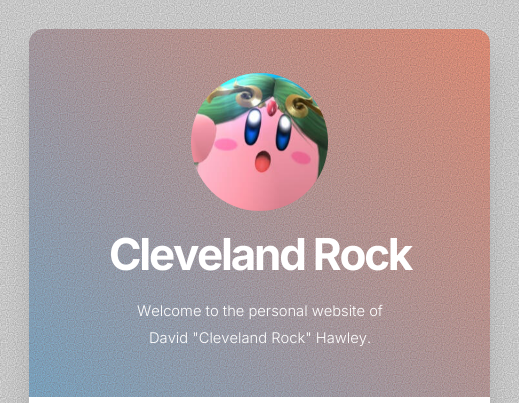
#include <cairo.h>
#include <math.h>
#include <stddef.h>

static cairo_t *c;
static void C(unsigned color){cairo_set_source_rgb(c, (color >> 16) / 255.0, (color >> 8 & 255) / 255.0, (color & 255) / 255.0);}
static void F(const char *family, double size, int italic, int bold){cairo_select_font_face(c, family, italic ? CAIRO_FONT_SLANT_ITALIC : CAIRO_FONT_SLANT_NORMAL,bold ? CAIRO_FONT_WEIGHT_BOLD : CAIRO_FONT_WEIGHT_NORMAL);cairo_set_font_size(c, size);}
static void T(double x, double y, const char *s){cairo_move_to(c, x, y);cairo_show_text(c, s);}
static void L(double x, double y, const char *s, double letter, double word){cairo_move_to(c, x, y);while (*s) {char ch[5] = {0};int n = 0;do ch[n++] = *s++; while ((*s & 0xC0) == 0x80);cairo_show_text(c, ch);cairo_rel_move_to(c, letter + word * (*ch == ' '), 0);}}
static void R(double x, double y, double w, double h){cairo_rectangle(c, x, y, w, h);cairo_fill(c);}
static void Q(double x, double y, double w, double h, double r){cairo_new_sub_path(c);cairo_arc(c, x + w - r, y + h - r, r, 0, M_PI / 2);cairo_arc(c, x + r, y + h - r, r, M_PI / 2, M_PI);cairo_arc(c, x + r, y + r, r, M_PI, 1.5 * M_PI);cairo_arc(c, x + w - r, y + r, r, 1.5 * M_PI, 2 * M_PI);cairo_close_path(c);}
static void S(double x, double y, double w, double h, double r, double blur, double alpha){cairo_push_group_with_content(c, CAIRO_CONTENT_ALPHA);cairo_set_operator(c, CAIRO_OPERATOR_SOURCE);for (int i = 15; i >= -15 && fmin(w, h) + blur * i / 3 > 0; i -= 2) {double e = blur * i / 6;cairo_set_source_rgba(c, 0, 0, 0, alpha * erfc((i - 1) / 8.5) / 2);Q(x - e, y - e, w + 2 * e, h + 2 * e, fmax(0, fmin(r + e + blur * .6, fmin(w, h) / 2 + e)));cairo_fill(c);}cairo_pattern_t *soft = cairo_pop_group(c);cairo_mask(c, soft);cairo_pattern_destroy(soft);}
static void I(const char *path, double x, double y, double w, double h){cairo_surface_t *image = cairo_image_surface_create_from_png(path);cairo_save(c);cairo_set_source_surface(c, image, x, y);cairo_rectangle(c, x, y, w, h);cairo_fill(c);cairo_restore(c);cairo_surface_destroy(image);}
int main(void) {
cairo_surface_t *surface = cairo_image_surface_create(CAIRO_FORMAT_RGB24, 519, 403);
c = cairo_create(surface);
cairo_font_options_t *options = cairo_font_options_create();
cairo_font_options_set_hint_metrics(options, CAIRO_HINT_METRICS_OFF);
cairo_font_options_set_hint_style(options, CAIRO_HINT_STYLE_NONE);
cairo_set_font_options(c, options);
cairo_set_miter_limit(c, 4);
C(0xededed);
cairo_paint(c);
I("1.png",0,0,519,403);
C(0x000000);
S(29,55,461,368,15,14.5,.12);
I("2.png",29,29,461,368);
I("3.png",191,73,137,138);
F("Inter",44,0,1);
C(0xffffff);
L(109,270,"Cleveland Rock",-2.25,0);
F("Inter Light",14.7,0,0);
T(137,316,"Welcome to the personal website of");
T(149,343,"David \"Cleveland Rock\" Hawley.");
R(29,397,461,6);
cairo_surface_write_to_png(surface, "o.png");
cairo_font_options_destroy(options);
cairo_destroy(c);
cairo_surface_destroy(surface);
return 0;
}
